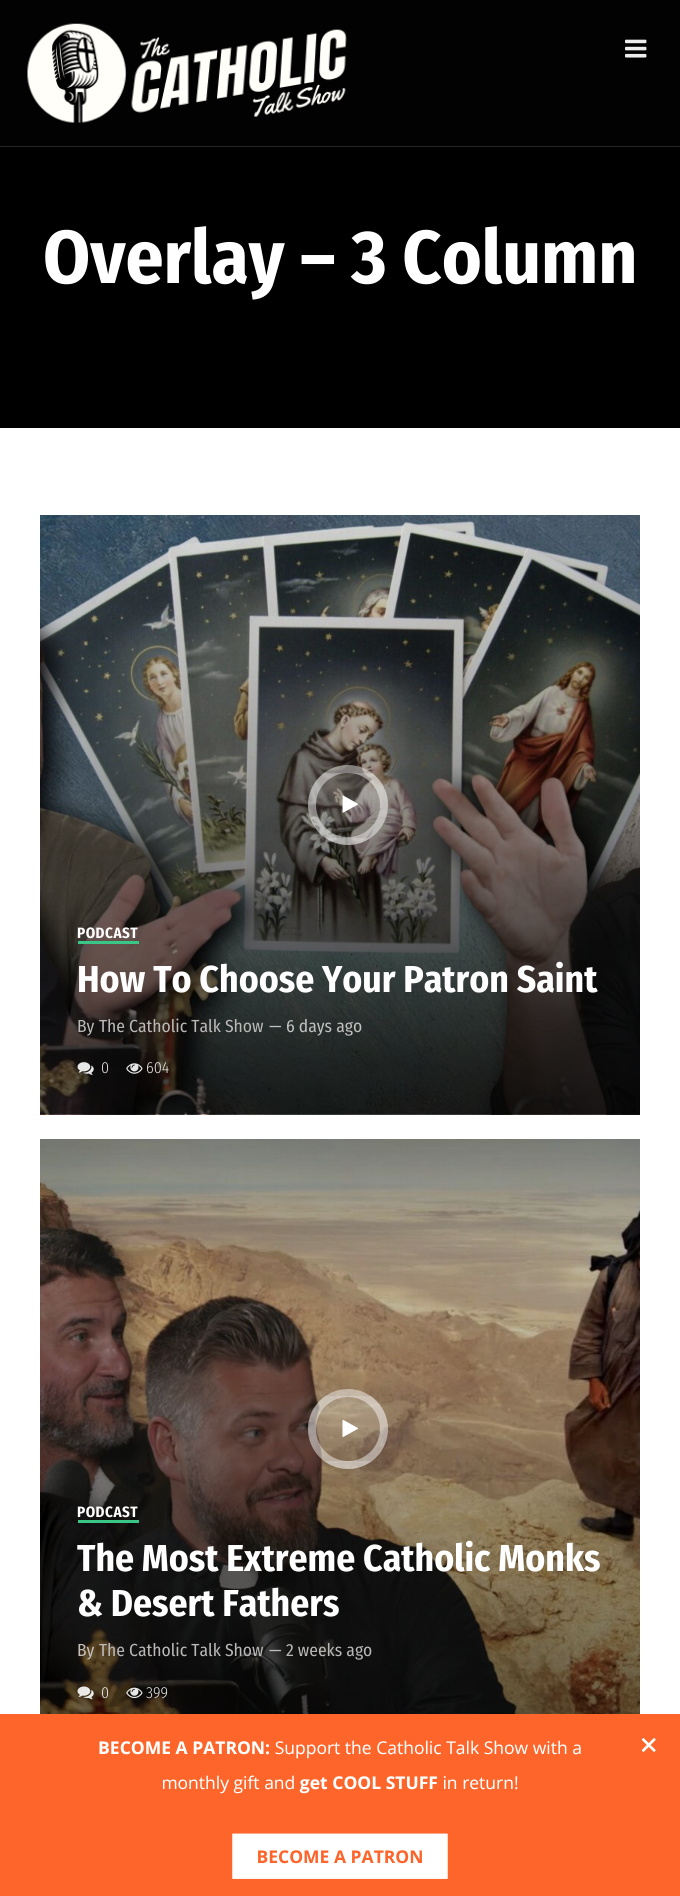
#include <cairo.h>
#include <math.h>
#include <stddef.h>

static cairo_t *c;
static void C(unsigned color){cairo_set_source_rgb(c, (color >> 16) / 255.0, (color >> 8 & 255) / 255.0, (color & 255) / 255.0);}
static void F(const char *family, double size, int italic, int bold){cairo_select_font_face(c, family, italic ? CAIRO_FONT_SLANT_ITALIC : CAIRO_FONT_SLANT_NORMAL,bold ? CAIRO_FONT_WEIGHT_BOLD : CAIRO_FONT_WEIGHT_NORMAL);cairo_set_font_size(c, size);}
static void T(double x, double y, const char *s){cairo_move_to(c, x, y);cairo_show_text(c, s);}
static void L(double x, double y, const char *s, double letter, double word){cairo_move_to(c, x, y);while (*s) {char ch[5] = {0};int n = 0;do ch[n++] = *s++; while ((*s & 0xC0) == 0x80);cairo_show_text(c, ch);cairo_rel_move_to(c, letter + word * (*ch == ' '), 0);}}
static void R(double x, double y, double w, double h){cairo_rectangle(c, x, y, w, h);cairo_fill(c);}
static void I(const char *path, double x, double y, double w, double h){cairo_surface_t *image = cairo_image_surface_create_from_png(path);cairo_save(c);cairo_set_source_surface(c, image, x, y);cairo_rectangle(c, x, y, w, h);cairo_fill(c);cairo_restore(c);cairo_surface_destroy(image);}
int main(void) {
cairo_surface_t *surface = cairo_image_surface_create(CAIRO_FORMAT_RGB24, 680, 1896);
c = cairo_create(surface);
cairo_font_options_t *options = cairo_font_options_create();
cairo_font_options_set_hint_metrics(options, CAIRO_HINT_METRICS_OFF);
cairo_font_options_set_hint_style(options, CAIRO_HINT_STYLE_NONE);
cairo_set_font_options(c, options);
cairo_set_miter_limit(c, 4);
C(0xffffff);
cairo_paint(c);
C(0x020202);
R(0,0,680,146);
I("1.png",27,23,320,100);
I("2.png",625,39,22,19);
C(0x262626);
R(0,146,680,1);
C(0x000000);
R(0,147,680,281);
F("Fira Sans Condensed",75,0,1);
C(0xffffff);
T(43,283,"Overlay – 3 Column");
I("3.png",40,515,600,600);
cairo_arc(c,348,805,36,0,2 * M_PI);
cairo_set_source_rgba(c,1,1,1,0.45);
cairo_set_line_width(c,8);
cairo_stroke(c);
I("4.png",342,795,17,18);
F("Fira Sans Condensed",15,0,1);
C(0xffffff);
L(77,938,"PODCAST",.5,0);
C(0x39c686);
R(78,941,61,3);
F("Fira Sans Condensed",37.5,0,1);
C(0xffffff);
T(77,992,"How To Choose Your Patron Saint");
F("Fira Sans Condensed",17.5,0,0);
C(0xbab9b8);
T(77,1032,"By");
T(99,1032,"The Catholic Talk Show");
C(0xc1c1c1);
T(269,1032,"—");
T(286,1032,"6 days ago");
I("5.png",77,1062,17,13);
F("Fira Sans Condensed Light",16,0,0);
C(0xe7e7e6);
T(101,1073,"0");
I("6.png",126,1063,17,11);
C(0xedebe9);
T(146,1073,"604");
I("7.png",40,1139,600,575);
cairo_arc(c,348,1429,36,0,2 * M_PI);
cairo_set_source_rgba(c,1,1,1,0.45);
cairo_stroke(c);
I("8.png",342,1419,17,18);
F("Fira Sans Condensed",15,0,1);
C(0xffffff);
L(77,1517,"PODCAST",.5,0);
C(0x39c686);
R(78,1520,61,3);
F("Fira Sans Condensed",37.5,0,1);
C(0xffffff);
T(77,1571,"The Most Extreme Catholic Monks");
T(77,1616,"& Desert Fathers");
F("Fira Sans Condensed",17.5,0,0);
C(0xc4c0ba);
T(77,1656,"By");
C(0xbab9b8);
T(99,1656,"The Catholic Talk Show");
C(0xc1c1c1);
T(269,1656,"—");
C(0xbab9b8);
T(286,1656,"2 weeks ago");
I("9.png",77,1686,17,14);
F("Fira Sans Condensed Light",16,0,0);
C(0xedebe9);
T(101,1698,"0");
I("10.png",126,1687,17,12);
C(0xe7e7e6);
T(146,1698,"399");
I("11.png",0,1714,680,182);
cairo_surface_write_to_png(surface, "o.png");
cairo_font_options_destroy(options);
cairo_destroy(c);
cairo_surface_destroy(surface);
return 0;
}
